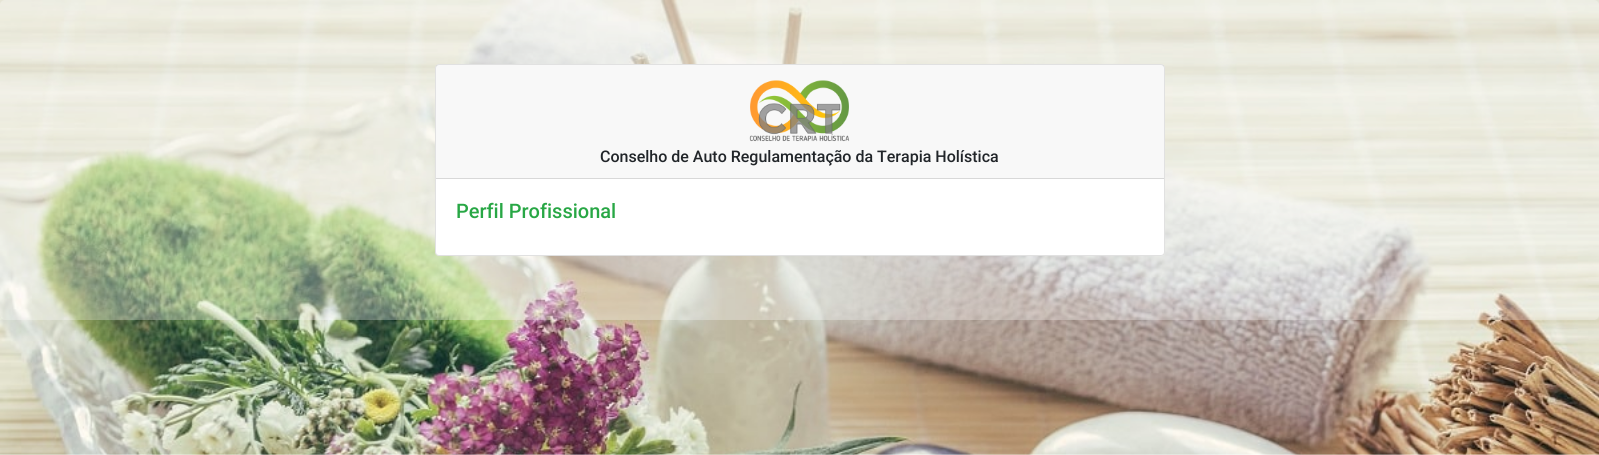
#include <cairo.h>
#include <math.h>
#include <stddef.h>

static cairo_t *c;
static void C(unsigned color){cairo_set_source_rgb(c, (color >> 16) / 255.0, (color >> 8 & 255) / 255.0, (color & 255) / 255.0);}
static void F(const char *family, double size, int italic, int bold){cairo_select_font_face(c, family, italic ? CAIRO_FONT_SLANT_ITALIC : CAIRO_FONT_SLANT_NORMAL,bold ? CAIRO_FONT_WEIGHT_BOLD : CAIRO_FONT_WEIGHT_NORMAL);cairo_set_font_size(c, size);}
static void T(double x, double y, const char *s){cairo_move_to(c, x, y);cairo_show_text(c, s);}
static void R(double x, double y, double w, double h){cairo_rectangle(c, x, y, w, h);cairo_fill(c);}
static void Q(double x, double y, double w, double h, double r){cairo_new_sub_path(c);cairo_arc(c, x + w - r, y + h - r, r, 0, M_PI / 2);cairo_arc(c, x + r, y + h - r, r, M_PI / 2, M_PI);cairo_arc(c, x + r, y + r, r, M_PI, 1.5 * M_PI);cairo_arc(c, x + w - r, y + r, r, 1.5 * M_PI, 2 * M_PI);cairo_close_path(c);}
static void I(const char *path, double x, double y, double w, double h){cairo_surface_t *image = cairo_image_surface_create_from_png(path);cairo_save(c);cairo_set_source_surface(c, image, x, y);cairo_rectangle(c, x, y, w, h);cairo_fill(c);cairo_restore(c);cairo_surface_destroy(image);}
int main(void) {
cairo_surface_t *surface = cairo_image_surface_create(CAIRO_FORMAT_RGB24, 1599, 455);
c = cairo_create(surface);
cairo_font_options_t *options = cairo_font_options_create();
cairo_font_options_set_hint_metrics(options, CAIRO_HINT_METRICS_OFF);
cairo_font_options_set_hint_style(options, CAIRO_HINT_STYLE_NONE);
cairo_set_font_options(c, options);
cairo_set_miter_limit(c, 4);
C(0xffffff);
cairo_paint(c);
I("1.png",0,0,1599,455);
cairo_set_source_rgba(c,1,1,1,0.3);
Q(0,0,1599,320,5);
cairo_fill(c);
C(0xffffff);
Q(435,64,730,192,4);
cairo_fill(c);
Q(435.5,64.5,729,191,3.5);
cairo_set_source_rgba(c,0,0,0,0.12);
cairo_set_line_width(c,1);
cairo_stroke(c);
cairo_set_source_rgba(c,0,0,0,0.03);
R(436,65,728,113);
C(0xd8d8d8);
R(436,178,728,1);
I("2.png",749,80,101,62);
F("Roboto Medium",16,0,0);
C(0x212529);
T(600,162,"Conselho de Auto Regulamentação da Terapia Holística");
F("Roboto Medium",20,0,0);
C(0x28a745);
T(456,218,"Perfil Profissional");
cairo_surface_write_to_png(surface, "o.png");
cairo_font_options_destroy(options);
cairo_destroy(c);
cairo_surface_destroy(surface);
return 0;
}
